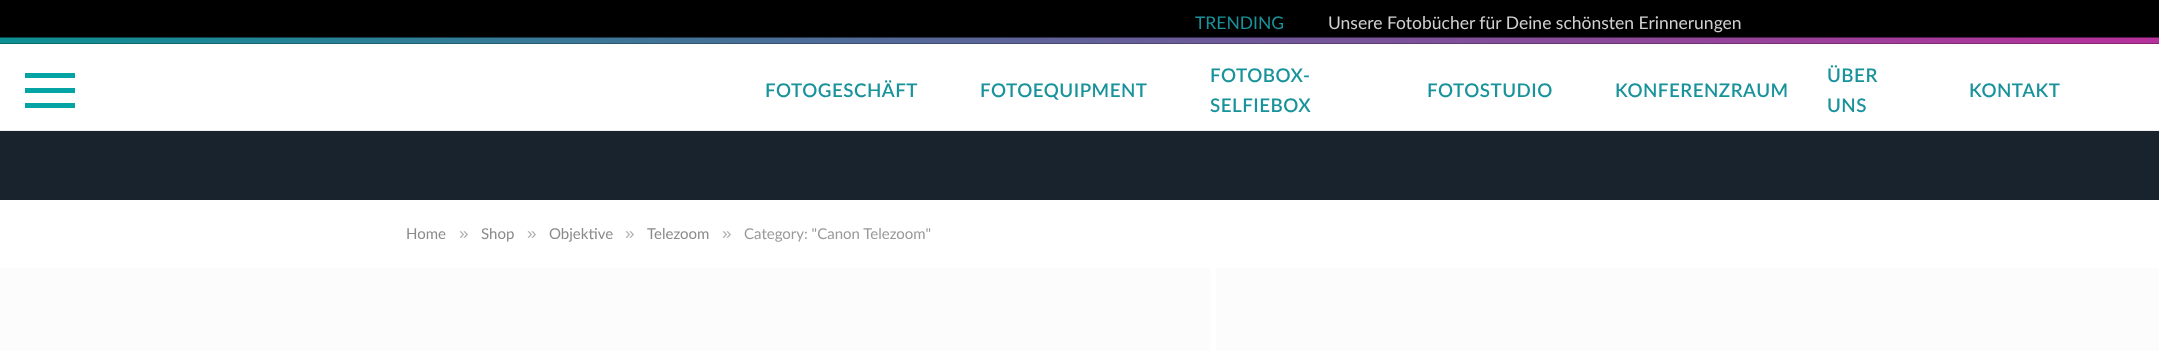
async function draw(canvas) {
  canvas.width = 2159;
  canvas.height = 351;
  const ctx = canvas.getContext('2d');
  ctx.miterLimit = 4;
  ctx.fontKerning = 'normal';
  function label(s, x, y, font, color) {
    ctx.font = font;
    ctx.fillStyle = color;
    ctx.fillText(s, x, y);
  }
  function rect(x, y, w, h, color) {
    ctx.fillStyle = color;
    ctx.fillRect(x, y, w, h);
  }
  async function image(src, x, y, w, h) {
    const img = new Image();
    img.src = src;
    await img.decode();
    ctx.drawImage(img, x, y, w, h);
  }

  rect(0, 0, 2159, 351, '#fff');
  rect(0, 0, 2159, 44, '#000');
  await image('assets/img1.png', 0, 37, 2159, 7);
  label('TRENDING', 1195, 29, '17.5px Lato', '#18929b');
  label('Unsere Fotobücher für Deine schönsten Erinnerungen', 1328, 29, '17.5px Lato', '#d1d1d1');
  rect(0, 130, 2159, 1, '#efefef');
  rect(25, 103, 50, 5, '#04a4a4');
  rect(25, 73, 50, 5, '#04a4a4');
  rect(25, 88, 50, 5, '#04a4a4');
  ctx.letterSpacing = '0.5px';
  label('FOTOGESCHÄFT', 765, 97, '600 18.75px Lato', '#18929b');
  label('FOTOEQUIPMENT', 980, 97, '600 18.75px Lato', '#18929b');
  label('FOTOBOX-', 1210, 82, '600 18.75px Lato', '#18929b');
  label('SELFIEBOX', 1210, 112, '600 18.75px Lato', '#18929b');
  label('FOTOSTUDIO', 1427, 97, '600 18.75px Lato', '#18929b');
  label('KONFERENZRAUM', 1615, 97, '600 18.75px Lato', '#18929b');
  label('ÜBER', 1827, 82, '600 18.75px Lato', '#18929b');
  label('UNS', 1827, 112, '600 18.75px Lato', '#18929b');
  label('KONTAKT', 1969, 97, '600 18.75px Lato', '#18929b');
  rect(0, 131, 2159, 69, '#19232d');
  ctx.letterSpacing = '0px';
  label('Home', 406, 239, '15px Lato', '#8a8a8a');
  label('»', 459, 239, '17px Liberation Sans', '#adadad');
  label('Shop', 481, 239, '15px Lato', '#8a8a8a');
  label('»', 527, 239, '17px Liberation Sans', '#adadad');
  label('Objektive', 549, 239, '15px Lato', '#8a8a8a');
  label('»', 625, 239, '17px Liberation Sans', '#adadad');
  label('Telezoom', 647, 239, '15px Lato', '#8a8a8a');
  label('»', 722, 239, '17px Liberation Sans', '#adadad');
  label('Category: "Canon Telezoom"', 744, 239, '15px Lato', '#999');
  rect(0, 268, 1210, 83, '#fcfcfc');
  rect(1216, 268, 943, 83, '#fcfcfc');
}

draw(document.querySelector('canvas'));
